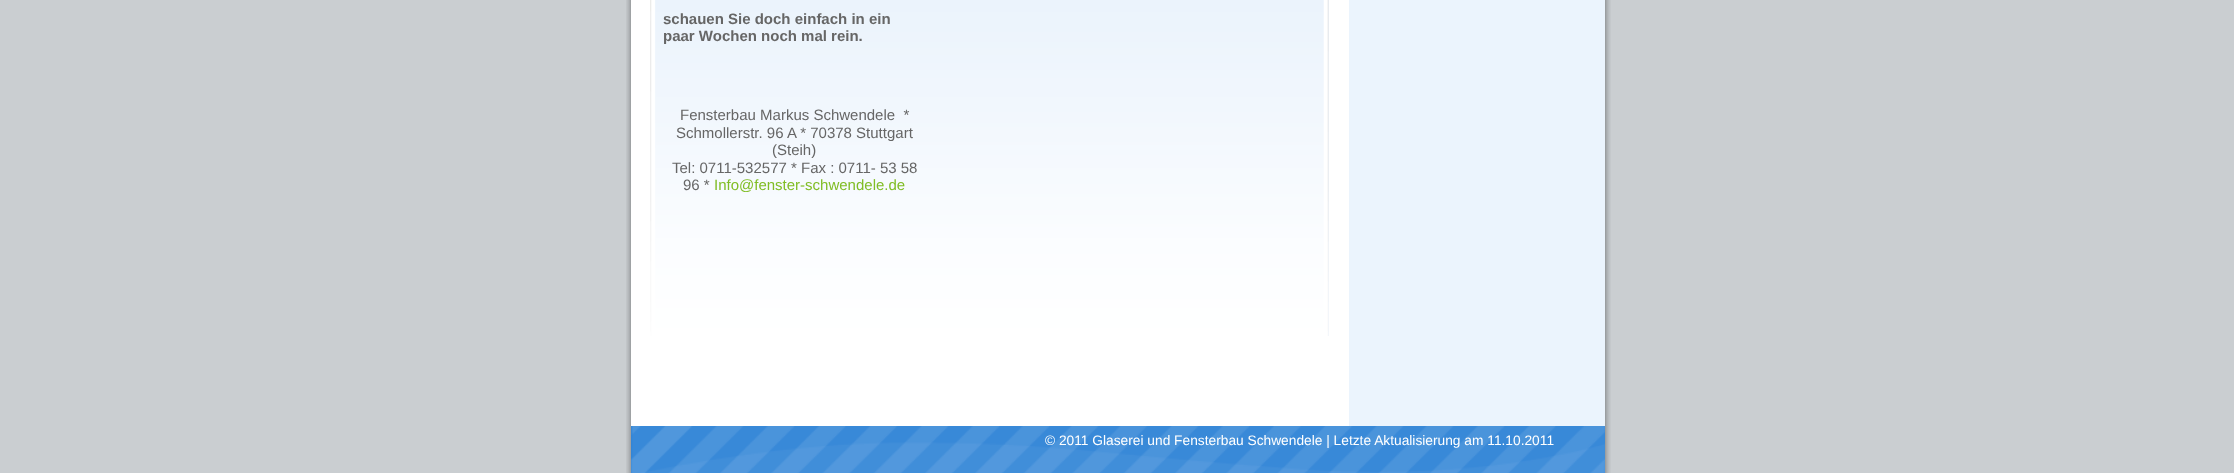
async function draw(canvas) {
  canvas.width = 2234;
  canvas.height = 473;
  const ctx = canvas.getContext('2d');
  ctx.miterLimit = 4;
  ctx.fontKerning = 'normal';
  function label(s, x, y, font, color) {
    ctx.font = font;
    ctx.fillStyle = color;
    ctx.fillText(s, x, y);
  }
  function rect(x, y, w, h, color) {
    ctx.fillStyle = color;
    ctx.fillRect(x, y, w, h);
  }
  async function image(src, x, y, w, h) {
    const img = new Image();
    img.src = src;
    await img.decode();
    ctx.drawImage(img, x, y, w, h);
  }

  rect(0, 0, 2234, 473, '#caced1');
  await image('assets/img1.png', 626, 0, 985, 426);
  rect(631, 0, 718, 426, '#fff');
  rect(654, 0, 675, 336, '#ddebfa');
  await image('assets/img2.png', 650, 0, 679, 336);
  rect(1349, 0, 256, 426, '#ebf4fd');
  label('schauen Sie doch einfach in ein', 663, 24, 'bold 15px Liberation Sans', '#666');
  label('paar Wochen noch mal rein.', 663, 41, 'bold 15px Liberation Sans', '#666');
  label('Fensterbau Markus Schwendele  *', 680, 120, '15px Liberation Sans', '#666');
  label('Schmollerstr. 96 A * 70378 Stuttgart', 676, 138, '15px Liberation Sans', '#666');
  label('(Steih)', 772, 155, '15px Liberation Sans', '#666');
  label('Tel: 0711-532577 * Fax : 0711- 53 58', 672, 173, '15px Liberation Sans', '#666');
  label('96 *', 683, 190, '15px Liberation Sans', '#666');
  label('Info@fenster-schwendele.de', 714, 190, '15px Liberation Sans', '#80bd25');
  await image('assets/img3.png', 626, 426, 985, 47);
  rect(631, 426, 974, 47, '#2e83d6');
  await image('assets/img4.png', 631, 426, 974, 47);
  label('© 2011 Glaserei und Fensterbau Schwendele | Letzte Aktualisierung am 11.10.2011', 1045, 445, '13.75px Liberation Sans', '#fff');
}

draw(document.querySelector('canvas'));
